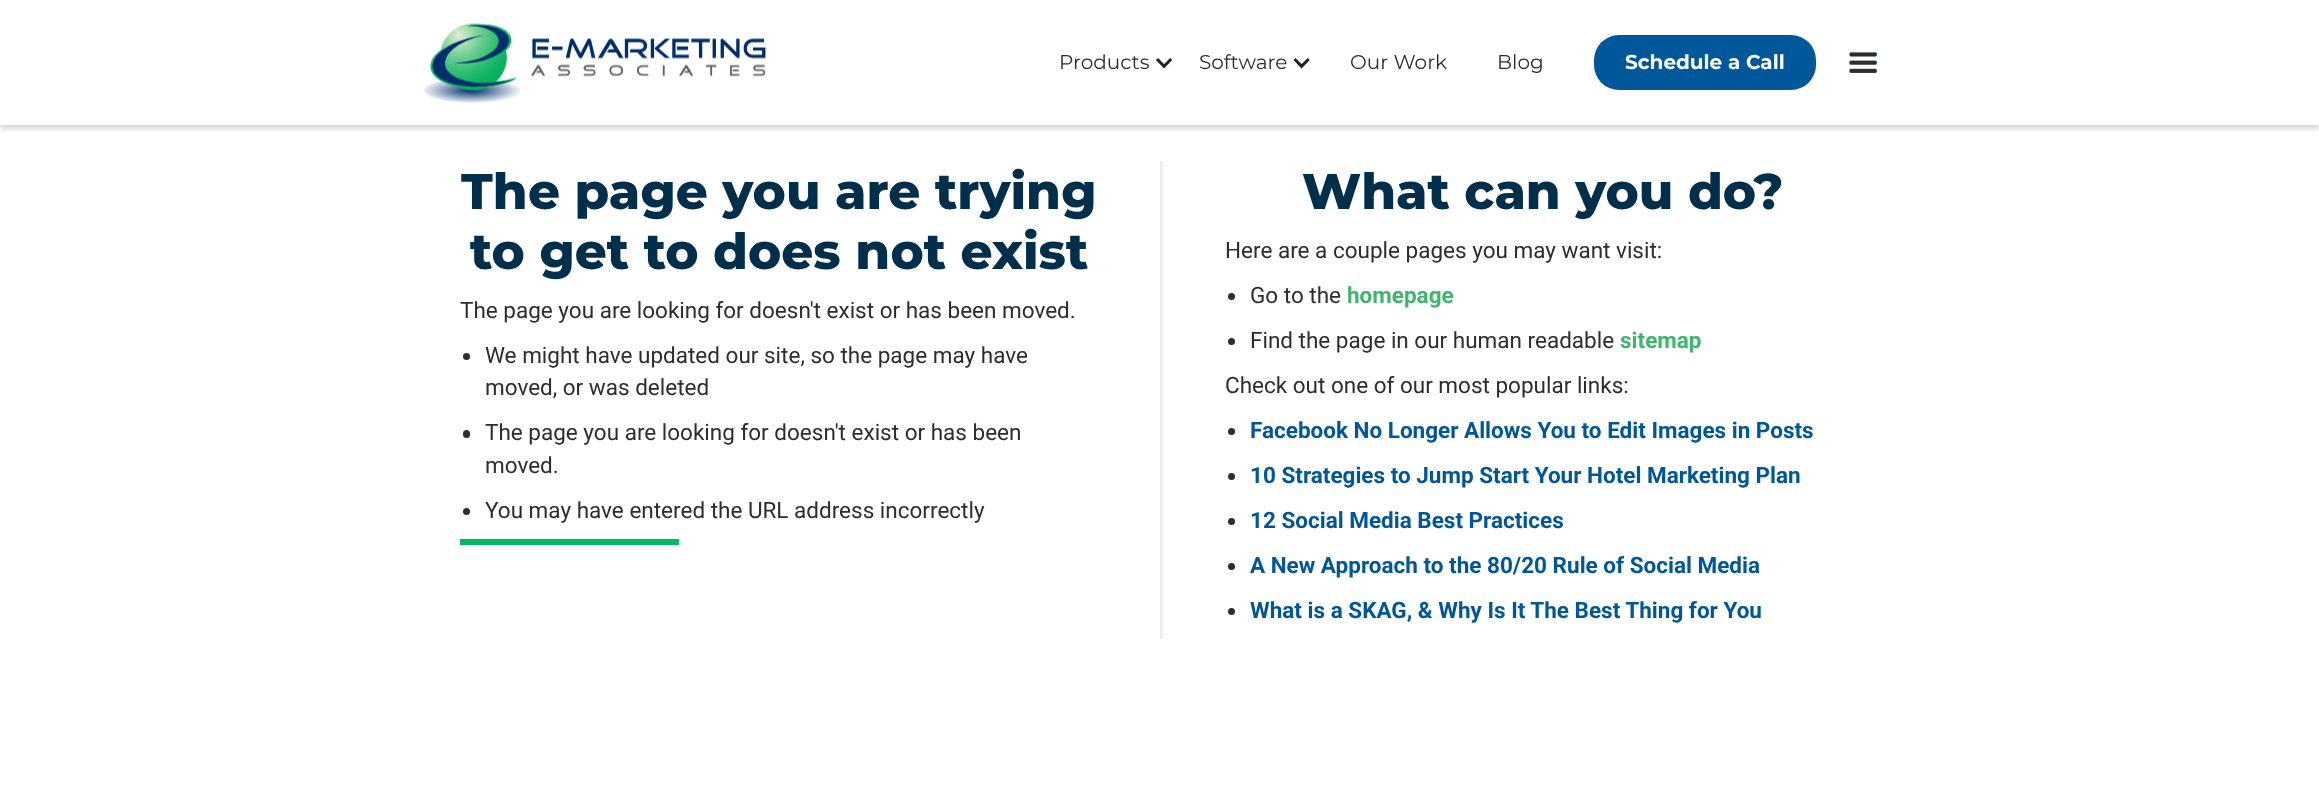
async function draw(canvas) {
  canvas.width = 2319;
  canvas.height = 800;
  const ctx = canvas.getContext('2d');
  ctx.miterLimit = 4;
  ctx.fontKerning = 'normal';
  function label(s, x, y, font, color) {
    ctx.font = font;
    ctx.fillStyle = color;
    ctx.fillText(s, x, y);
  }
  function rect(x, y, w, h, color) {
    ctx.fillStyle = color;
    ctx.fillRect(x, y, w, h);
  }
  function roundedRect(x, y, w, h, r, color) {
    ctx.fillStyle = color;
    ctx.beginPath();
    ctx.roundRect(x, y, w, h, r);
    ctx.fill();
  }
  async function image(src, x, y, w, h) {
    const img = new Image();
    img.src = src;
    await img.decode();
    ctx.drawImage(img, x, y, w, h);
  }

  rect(0, 0, 2319, 800, '#fff');
  ctx.save();
  ctx.beginPath();
  ctx.rect(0, 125, 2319, 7);
  ctx.clip();
  ctx.fillStyle = '#00000033';
  ctx.filter = 'blur(3px)';
  ctx.beginPath();
  ctx.rect(0, 3, 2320, 125);
  ctx.fill();
  ctx.filter = 'none';
  ctx.restore();
  await image('assets/img1.png', 424, 23, 342, 80);
  label('Products', 1059, 69, '20px Montserrat', '#2a2e30');
  await image('assets/img2.png', 1156, 58, 17, 11);
  label('Software', 1199, 69, '20px Montserrat', '#2a2e30');
  await image('assets/img3.png', 1293, 58, 17, 11);
  label('Our Work', 1350, 69, '20px Montserrat', '#2a2e30');
  label('Blog', 1497, 69, '20px Montserrat', '#2a2e30');
  roundedRect(1594, 35, 222, 55, 25, '#00579a');
  label('Schedule a Call', 1625, 69, 'bold 20px Montserrat', '#fff');
  await image('assets/img4.png', 1849, 52, 28, 21);
  label('The page you are trying', 461, 209, '800 50px Montserrat', '#012e4b');
  label('to get to does not exist', 470, 269, '800 50px Montserrat', '#012e4b');
  label('The page you are looking for doesn\'t exist or has been moved.', 460, 318, '22.5px Roboto', '#2a2e30');
  ctx.beginPath();
  ctx.arc(466.5, 356.5, 3.5, 0, 2 * Math.PI);
  ctx.fill();
  label('We might have updated our site, so the page may have', 485, 363, '22.5px Roboto', '#2a2e30');
  label('moved, or was deleted', 485, 395, '22.5px Roboto', '#2a2e30');
  roundedRect(463, 430, 7, 8, 3.5, '#2a2e30');
  label('The page you are looking for doesn\'t exist or has been', 485, 440, '22.5px Roboto', '#2a2e30');
  label('moved.', 485, 473, '22.5px Roboto', '#2a2e30');
  ctx.beginPath();
  ctx.arc(466.5, 511.5, 3.5, 0, 2 * Math.PI);
  ctx.fill();
  label('You may have entered the URL address incorrectly', 485, 518, '22.5px Roboto', '#2a2e30');
  rect(460, 539, 219, 6, '#00b965');
  rect(1160, 161, 3, 478, '#eee');
  label('What can you do?', 1302, 209, '800 50px Montserrat', '#012e4b');
  label('Here are a couple pages you may want visit:', 1225, 258, '22.5px Roboto', '#2a2e30');
  ctx.beginPath();
  ctx.arc(1231.5, 296.5, 3.5, 0, 2 * Math.PI);
  ctx.fill();
  label('Go to the', 1250, 303, '22.5px Roboto', '#2a2e30');
  label('homepage', 1347, 303, 'bold 22.5px Roboto', '#3fb66d');
  ctx.fillStyle = '#2a2e30';
  ctx.beginPath();
  ctx.arc(1231.5, 341.5, 3.5, 0, 2 * Math.PI);
  ctx.fill();
  label('Find the page in our human readable', 1250, 348, '22.5px Roboto', '#2a2e30');
  label('sitemap', 1620, 348, 'bold 22.5px Roboto', '#3fb66d');
  label('Check out one of our most popular links:', 1225, 393, '22.5px Roboto', '#2a2e30');
  ctx.beginPath();
  ctx.arc(1231.5, 431.5, 3.5, 0, 2 * Math.PI);
  ctx.fill();
  label('Facebook No Longer Allows You to Edit Images in Posts', 1250, 438, 'bold 22.5px Roboto', '#015796');
  ctx.fillStyle = '#2a2e30';
  ctx.beginPath();
  ctx.arc(1231.5, 476.5, 3.5, 0, 2 * Math.PI);
  ctx.fill();
  label('10 Strategies to Jump Start Your Hotel Marketing Plan', 1250, 483, 'bold 22.5px Roboto', '#015796');
  ctx.fillStyle = '#2a2e30';
  ctx.beginPath();
  ctx.arc(1231.5, 521.5, 3.5, 0, 2 * Math.PI);
  ctx.fill();
  label('12 Social Media Best Practices', 1250, 528, 'bold 22.5px Roboto', '#015796');
  ctx.fillStyle = '#2a2e30';
  ctx.beginPath();
  ctx.arc(1231.5, 566.5, 3.5, 0, 2 * Math.PI);
  ctx.fill();
  label('A New Approach to the 80/20 Rule of Social Media', 1250, 573, 'bold 22.5px Roboto', '#015796');
  ctx.fillStyle = '#2a2e30';
  ctx.beginPath();
  ctx.arc(1231.5, 611.5, 3.5, 0, 2 * Math.PI);
  ctx.fill();
  label('What is a SKAG, & Why Is It The Best Thing for You', 1250, 618, 'bold 22.5px Roboto', '#015796');
}

draw(document.querySelector('canvas'));
